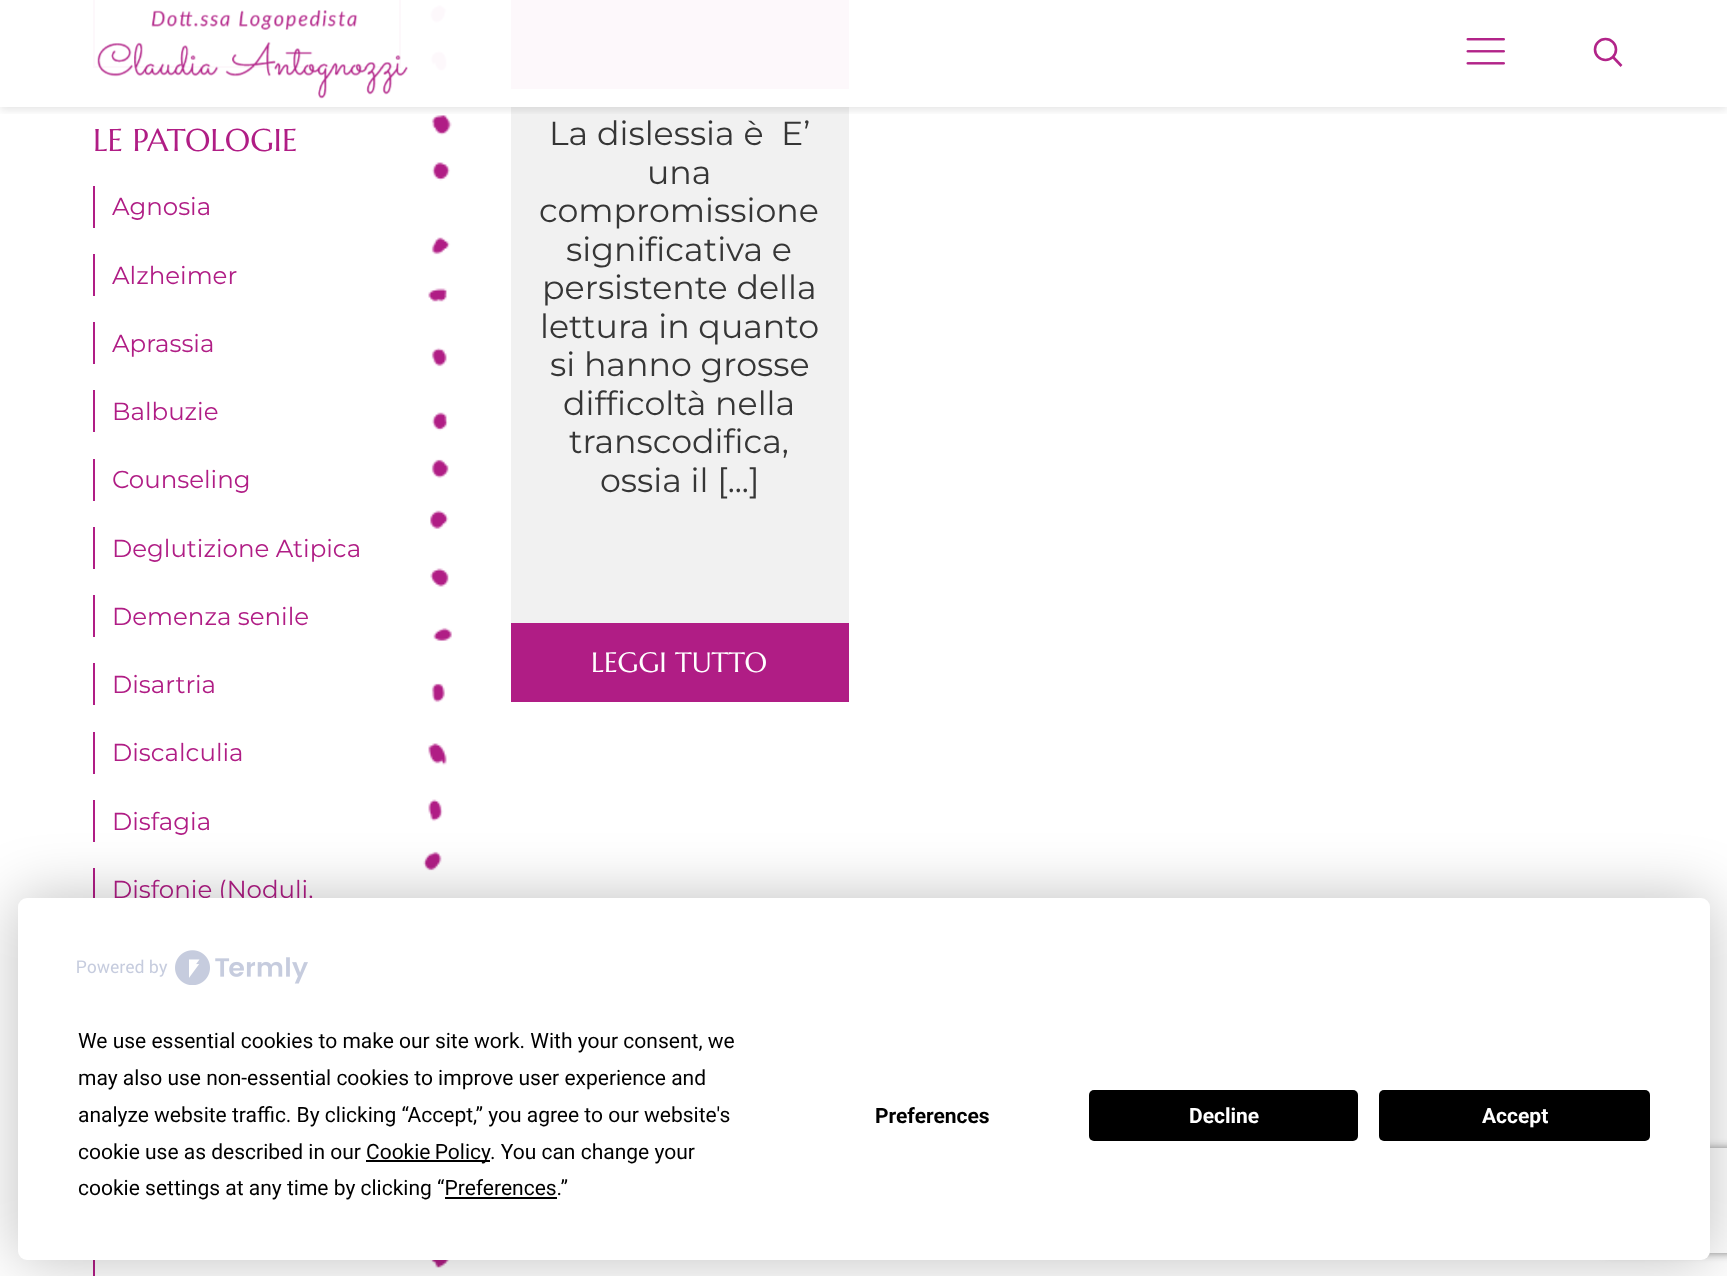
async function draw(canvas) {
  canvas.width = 1727;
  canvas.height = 1276;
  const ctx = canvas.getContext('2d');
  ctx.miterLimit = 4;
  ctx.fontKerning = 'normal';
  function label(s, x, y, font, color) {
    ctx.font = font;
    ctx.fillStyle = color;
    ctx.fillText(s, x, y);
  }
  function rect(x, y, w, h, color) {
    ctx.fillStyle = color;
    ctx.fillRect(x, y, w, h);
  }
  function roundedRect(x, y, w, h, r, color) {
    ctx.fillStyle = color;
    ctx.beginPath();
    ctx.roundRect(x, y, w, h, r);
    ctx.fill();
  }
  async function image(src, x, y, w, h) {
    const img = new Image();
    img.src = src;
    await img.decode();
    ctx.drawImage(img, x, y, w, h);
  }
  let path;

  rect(0, 0, 1727, 1276, '#fff');
  ctx.strokeStyle = '#b01d85';
  ctx.lineWidth = 2;
  ctx.strokeRect(94, -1, 306, 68);
  await image('assets/img3.png', 423, 4, 29, 1264);
  rect(511, 89, 338, 534, '#f1f1f1');
  rect(511, 0, 338, 89, '#b01d85');
  ctx.save();
  ctx.beginPath();
  ctx.rect(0, 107, 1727, 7);
  ctx.clip();
  ctx.fillStyle = '#0000001a';
  ctx.filter = 'blur(4.5px)';
  ctx.beginPath();
  ctx.rect(0, 4, 1727, 106);
  ctx.fill();
  ctx.filter = 'none';
  ctx.restore();
  rect(0, 0, 1727, 107, '#fffffff7');
  await image('assets/img1.png', 97, 10, 311, 89);
  await image('assets/img2.png', 1466, 38, 39, 27);
  ctx.beginPath();
  ctx.arc(1605.5, 49.5, 10.5, 0, 2 * Math.PI);
  ctx.strokeStyle = '#b22489';
  ctx.lineWidth = 2.6;
  ctx.stroke();
  path = new Path2D('M1613 57L1621.5 66');
  ctx.stroke(path);
  label('LE PATOLOGIE', 93, 151, '31.5px Marcellus', '#b01d85');
  rect(93, 186, 2, 42, '#b01d85');
  label('Agnosia', 112, 215, '24.5px Montserrat', '#b01d85');
  rect(93, 254, 2, 42, '#b01d85');
  label('Alzheimer', 112, 284, '24.5px Montserrat', '#b01d85');
  rect(93, 322, 2, 42, '#b01d85');
  label('Aprassia', 112, 352, '24.5px Montserrat', '#b01d85');
  rect(93, 390, 2, 42, '#b01d85');
  label('Balbuzie', 112, 420, '24.5px Montserrat', '#b01d85');
  rect(93, 459, 2, 42, '#b01d85');
  label('Counseling', 112, 488, '24.5px Montserrat', '#b01d85');
  rect(93, 527, 2, 42, '#b01d85');
  label('Deglutizione Atipica', 112, 557, '24.5px Montserrat', '#b01d85');
  rect(93, 595, 2, 42, '#b01d85');
  label('Demenza senile', 112, 625, '24.5px Montserrat', '#b01d85');
  rect(93, 663, 2, 42, '#b01d85');
  label('Disartria', 112, 693, '24.5px Montserrat', '#b01d85');
  rect(93, 732, 2, 42, '#b01d85');
  label('Discalculia', 112, 761, '24.5px Montserrat', '#b01d85');
  rect(93, 800, 2, 42, '#b01d85');
  label('Disfagia', 112, 830, '24.5px Montserrat', '#b01d85');
  rect(93, 868, 2, 30, '#b01d85');
  label('Disfonie (Noduli,', 112, 898, '24.5px Montserrat', '#b01d85');
  rect(93, 1258, 2, 18, '#b01d85');
  label('La dislessia è', 549, 145, '33.25px Montserrat', '#363636');
  label('E’', 781, 145, '33.25px Montserrat', '#363636');
  label('una', 647, 184, '33.25px Montserrat', '#363636');
  label('compromissione', 539, 222, '33.25px Montserrat', '#363636');
  label('significativa e', 566, 261, '33.25px Montserrat', '#363636');
  label('persistente della', 542, 299, '33.25px Montserrat', '#363636');
  label('lettura in quanto', 540, 338, '33.25px Montserrat', '#363636');
  label('si hanno grosse', 550, 376, '33.25px Montserrat', '#363636');
  label('difficoltà nella', 563, 415, '33.25px Montserrat', '#363636');
  label('transcodifica,', 569, 453, '33.25px Montserrat', '#363636');
  label('ossia il [...]', 600, 492, '33.25px Montserrat', '#363636');
  rect(511, 623, 338, 79, '#b01d85');
  label('LEGGI TUTTO', 591, 672, '28px Marcellus', '#fff');
  ctx.fillStyle = '#00000040';
  ctx.filter = 'blur(30.5px)';
  ctx.beginPath();
  ctx.roundRect(18, 898, 1692, 362, 9);
  ctx.fill();
  ctx.filter = 'none';
  ctx.save();
  path = new Path2D('M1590 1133H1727V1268H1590ZM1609 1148H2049C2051 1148 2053 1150 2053 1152V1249C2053 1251 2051 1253 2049 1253H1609C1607 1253 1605 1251 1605 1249V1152C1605 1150 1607 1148 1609 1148Z');
  ctx.clip(path, 'evenodd');
  ctx.fillStyle = '#808080';
  ctx.filter = 'blur(4.5px)';
  ctx.beginPath();
  ctx.roundRect(1605, 1148, 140, 105, 4);
  ctx.fill();
  ctx.filter = 'none';
  ctx.restore();
  roundedRect(18, 898, 1692, 362, 9, '#fff');
  await image('assets/img4.png', 77, 950, 231, 35);
  label('We use essential cookies to make our site work. With your consent, we', 78, 1048, '21px Roboto', '#000');
  label('may also use non-essential cookies to improve user experience and', 78, 1085, '21px Roboto', '#000');
  label('analyze website traffic. By clicking “Accept,” you agree to our website\'s', 78, 1122, '21px Roboto', '#000');
  label('cookie use as described in our', 78, 1159, '21px Roboto', '#000');
  rect(366, 1160, 124, 2, '#000');
  ctx.wordSpacing = '-1px';
  label('Cookie Policy', 366, 1159, '21px Roboto', '#000');
  ctx.wordSpacing = '0px';
  label('. You can change your', 490, 1159, '21px Roboto', '#000');
  label('cookie settings at any time by clicking “Preferences.”', 78, 1195, '21px Roboto', '#000');
  rect(445, 1197, 112, 2, '#000');
  label('Preferences', 875, 1123, 'bold 21px Roboto', '#000');
  roundedRect(1089, 1090, 269, 51, 5, '#000');
  label('Decline', 1189, 1123, 'bold 21px Roboto', '#fff');
  roundedRect(1379, 1090, 271, 51, 5, '#000');
  label('Accept', 1482, 1123, 'bold 21px Roboto', '#fff');
}

draw(document.querySelector('canvas'));
